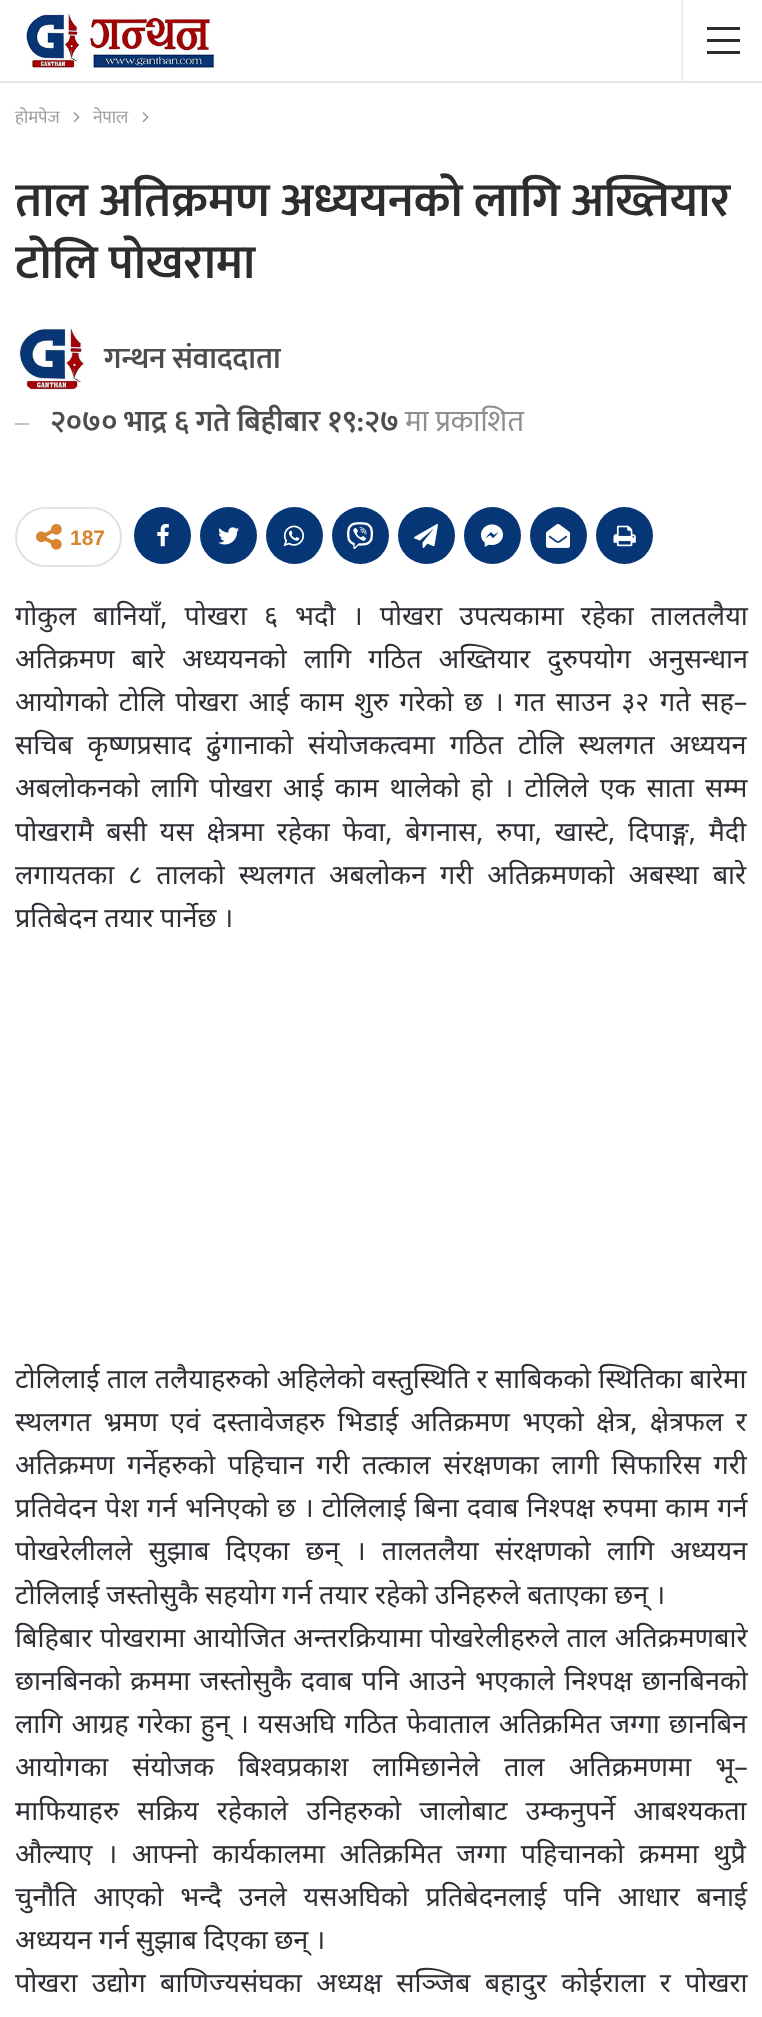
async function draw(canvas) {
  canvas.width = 762;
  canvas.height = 2017;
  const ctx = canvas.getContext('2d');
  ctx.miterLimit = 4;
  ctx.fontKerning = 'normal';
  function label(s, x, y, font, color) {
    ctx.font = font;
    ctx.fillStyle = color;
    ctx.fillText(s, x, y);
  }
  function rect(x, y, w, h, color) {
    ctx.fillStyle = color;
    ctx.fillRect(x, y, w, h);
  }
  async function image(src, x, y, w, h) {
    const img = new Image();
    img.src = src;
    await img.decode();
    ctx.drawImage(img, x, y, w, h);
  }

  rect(0, 0, 762, 2017, '#fff');
  rect(0, 81, 762, 2, '#e5e5e5');
  await image('assets/img1.png', 26, 12, 190, 57);
  rect(681, 0, 2, 81, '#ededed');
  rect(707, 39, 33, 3, '#2c2c2c');
  rect(707, 27, 33, 3, '#2c2c2c');
  rect(707, 51, 33, 3, '#2c2c2c');
  label('होमपेज', 15, 123, '18px Mukta', '#9e9e9e');
  await image('assets/img2.png', 73, 112, 7, 11);
  label('नेपाल', 93, 123, '18px Mukta', '#9e9e9e');
  await image('assets/img2.png', 142, 112, 7, 11);
  ctx.save();
  ctx.beginPath();
  ctx.rect(15, 171, 732, 276);
  ctx.clip();
  label('ताल अतिक्रमण अध्ययनको लागि अख्तियार', 15, 216, '600 48px Mukta', '#2d2d2d');
  label('टोलि पोखरामा', 15, 278, '600 48px Mukta', '#2d2d2d');
  ctx.restore();
  await image('assets/img3.png', 19, 325, 67, 66);
  label('गन्थन संवाददाता', 104, 368, '600 30px Mukta', '#4d4d4d');
  rect(15, 423, 14, 2, '#c4c4c4');
  label('२०७० भाद्र ६ गते बिहीबार १९:२७', 50, 431, '600 30px Mukta', '#4d4d4d');
  label('मा प्रकाशित', 405, 431, '30px Mukta', '#8f8f8f');
  ctx.beginPath();
  ctx.roundRect(16, 508, 105, 58, 29);
  ctx.strokeStyle = '#e2e2e2';
  ctx.lineWidth = 2;
  ctx.stroke();
  await image('assets/img4.png', 36, 523, 26, 27);
  label('187', 70, 545, 'bold 21px Liberation Sans', '#d88531');
  ctx.fillStyle = '#063676';
  ctx.beginPath();
  ctx.arc(162.5, 535.5, 28.5, 0, 2 * Math.PI);
  ctx.fill();
  await image('assets/img5.png', 157, 523, 12, 24);
  ctx.beginPath();
  ctx.arc(228.5, 535.5, 28.5, 0, 2 * Math.PI);
  ctx.fill();
  await image('assets/img6.png', 218, 527, 21, 18);
  ctx.beginPath();
  ctx.arc(294.5, 535.5, 28.5, 0, 2 * Math.PI);
  ctx.fill();
  await image('assets/img7.png', 283, 525, 22, 22);
  ctx.beginPath();
  ctx.arc(360.5, 535.5, 28.5, 0, 2 * Math.PI);
  ctx.fill();
  await image('assets/img8.png', 347, 522, 26, 27);
  ctx.beginPath();
  ctx.arc(426.5, 535.5, 28.5, 0, 2 * Math.PI);
  ctx.fill();
  await image('assets/img9.png', 414, 524, 24, 24);
  ctx.beginPath();
  ctx.arc(492.5, 535.5, 28.5, 0, 2 * Math.PI);
  ctx.fill();
  await image('assets/img10.png', 480, 524, 24, 23);
  ctx.beginPath();
  ctx.arc(558.5, 535.5, 28.5, 0, 2 * Math.PI);
  ctx.fill();
  await image('assets/img11.png', 546, 524, 24, 24);
  ctx.beginPath();
  ctx.arc(624.5, 535.5, 28.5, 0, 2 * Math.PI);
  ctx.fill();
  await image('assets/img12.png', 613, 525, 23, 22);
  ctx.wordSpacing = '10px';
  label('गोकुल बानियाँ, पोखरा ६ भदौ । पोखरा उपत्यकामा रहेका तालतलैया', 15, 625, '27px Noto Sans', '#2c2f34');
  label('अतिक्रमण बारे अध्ययनको लागि गठित अख्तियार दुरुपयोग अनुसन्धान', 15, 668, '27px Noto Sans', '#2c2f34');
  ctx.wordSpacing = '3.6px';
  label('आयोगको टोलि पोखरा आई काम शुरु गरेको छ । गत साउन ३२ गते सह–', 15, 711, '27px Noto Sans', '#2c2f34');
  ctx.wordSpacing = '7.75px';
  label('सचिब कृष्णप्रसाद ढुंगानाको संयोजकत्वमा गठित टोलि स्थलगत अध्ययन', 15, 754, '27px Noto Sans', '#2c2f34');
  ctx.wordSpacing = '4px';
  label('अबलोकनको लागि पोखरा आई काम थालेको हो । टोलिले एक साता सम्म', 15, 797, '27px Noto Sans', '#2c2f34');
  ctx.wordSpacing = '5.75px';
  label('पोखरामै बसी यस क्षेत्रमा रहेका फेवा, बेगनास, रुपा, खास्टे, दिपाङ्ग, मैदी', 15, 841, '27px Noto Sans', '#2c2f34');
  ctx.wordSpacing = '7px';
  label('लगायतका ८ तालको स्थलगत अबलोकन गरी अतिक्रमणको अबस्था बारे', 15, 884, '27px Noto Sans', '#2c2f34');
  ctx.wordSpacing = '-0.25px';
  label('प्रतिबेदन तयार पार्नेछ ।', 15, 927, '27px Noto Sans', '#2c2f34');
  ctx.wordSpacing = '0.25px';
  label('टोलिलाई ताल तलैयाहरुको अहिलेको वस्तुस्थिति र साबिकको स्थितिका बारेमा', 15, 1388, '27px Noto Sans', '#2c2f34');
  ctx.wordSpacing = '5.25px';
  label('स्थलगत भ्रमण एवं दस्तावेजहरु भिडाई अतिक्रमण भएको क्षेत्र, क्षेत्रफल र', 15, 1431, '27px Noto Sans', '#2c2f34');
  ctx.wordSpacing = '5.5px';
  label('अतिक्रमण गर्नेहरुको पहिचान गरी तत्काल संरक्षणका लागी सिफारिस गरी', 15, 1474, '27px Noto Sans', '#2c2f34');
  ctx.wordSpacing = '1px';
  label('प्रतिवेदन पेश गर्न भनिएको छ । टोलिलाई बिना दवाब निश्पक्ष रुपमा काम गर्न', 15, 1517, '27px Noto Sans', '#2c2f34');
  ctx.wordSpacing = '9px';
  label('पोखरेलीलले सुझाब दिएका छन् । तालतलैया संरक्षणको लागि अध्ययन', 15, 1560, '27px Noto Sans', '#2c2f34');
  ctx.wordSpacing = '-0.25px';
  label('टोलिलाई जस्तोसुकै सहयोग गर्न तयार रहेको उनिहरुले बताएका छन् ।', 15, 1604, '27px Noto Sans', '#2c2f34');
  ctx.wordSpacing = '0.5px';
  label('बिहिबार पोखरामा आयोजित अन्तरक्रियामा पोखरेलीहरुले ताल अतिक्रमणबारे', 15, 1647, '27px Noto Sans', '#2c2f34');
  ctx.wordSpacing = '2.25px';
  label('छानबिनको क्रममा जस्तोसुकै दवाब पनि आउने भएकाले निश्पक्ष छानबिनको', 15, 1690, '27px Noto Sans', '#2c2f34');
  ctx.wordSpacing = '1.9px';
  label('लागि आग्रह गरेका हुन् । यसअघि गठित फेवाताल अतिक्रमित जग्गा छानबिन', 15, 1733, '27px Noto Sans', '#2c2f34');
  ctx.wordSpacing = '17px';
  label('आयोगका संयोजक बिश्वप्रकाश लामिछानेले ताल अतिक्रमणमा भू–', 15, 1776, '27px Noto Sans', '#2c2f34');
  ctx.wordSpacing = '11px';
  label('माफियाहरु सक्रिय रहेकाले उनिहरुको जालोबाट उम्कनुपर्ने आबश्यकता', 15, 1820, '27px Noto Sans', '#2c2f34');
  ctx.wordSpacing = '7.5px';
  label('औल्याए । आफ्नो कार्यकालमा अतिक्रमित जग्गा पहिचानको क्रममा थुप्रै', 15, 1863, '27px Noto Sans', '#2c2f34');
  ctx.wordSpacing = '9.75px';
  label('चुनौति आएको भन्दै उनले यसअघिको प्रतिबेदनलाई पनि आधार बनाई', 15, 1906, '27px Noto Sans', '#2c2f34');
  ctx.wordSpacing = '-0.25px';
  label('अध्ययन गर्न सुझाब दिएका छन् ।', 15, 1949, '27px Noto Sans', '#2c2f34');
  ctx.wordSpacing = '7.25px';
  label('पोखरा उद्योग बाणिज्यसंघका अध्यक्ष सञ्जिब बहादुर कोईराला र पोखरा', 15, 1992, '27px Noto Sans', '#2c2f34');
}

draw(document.querySelector('canvas'));
